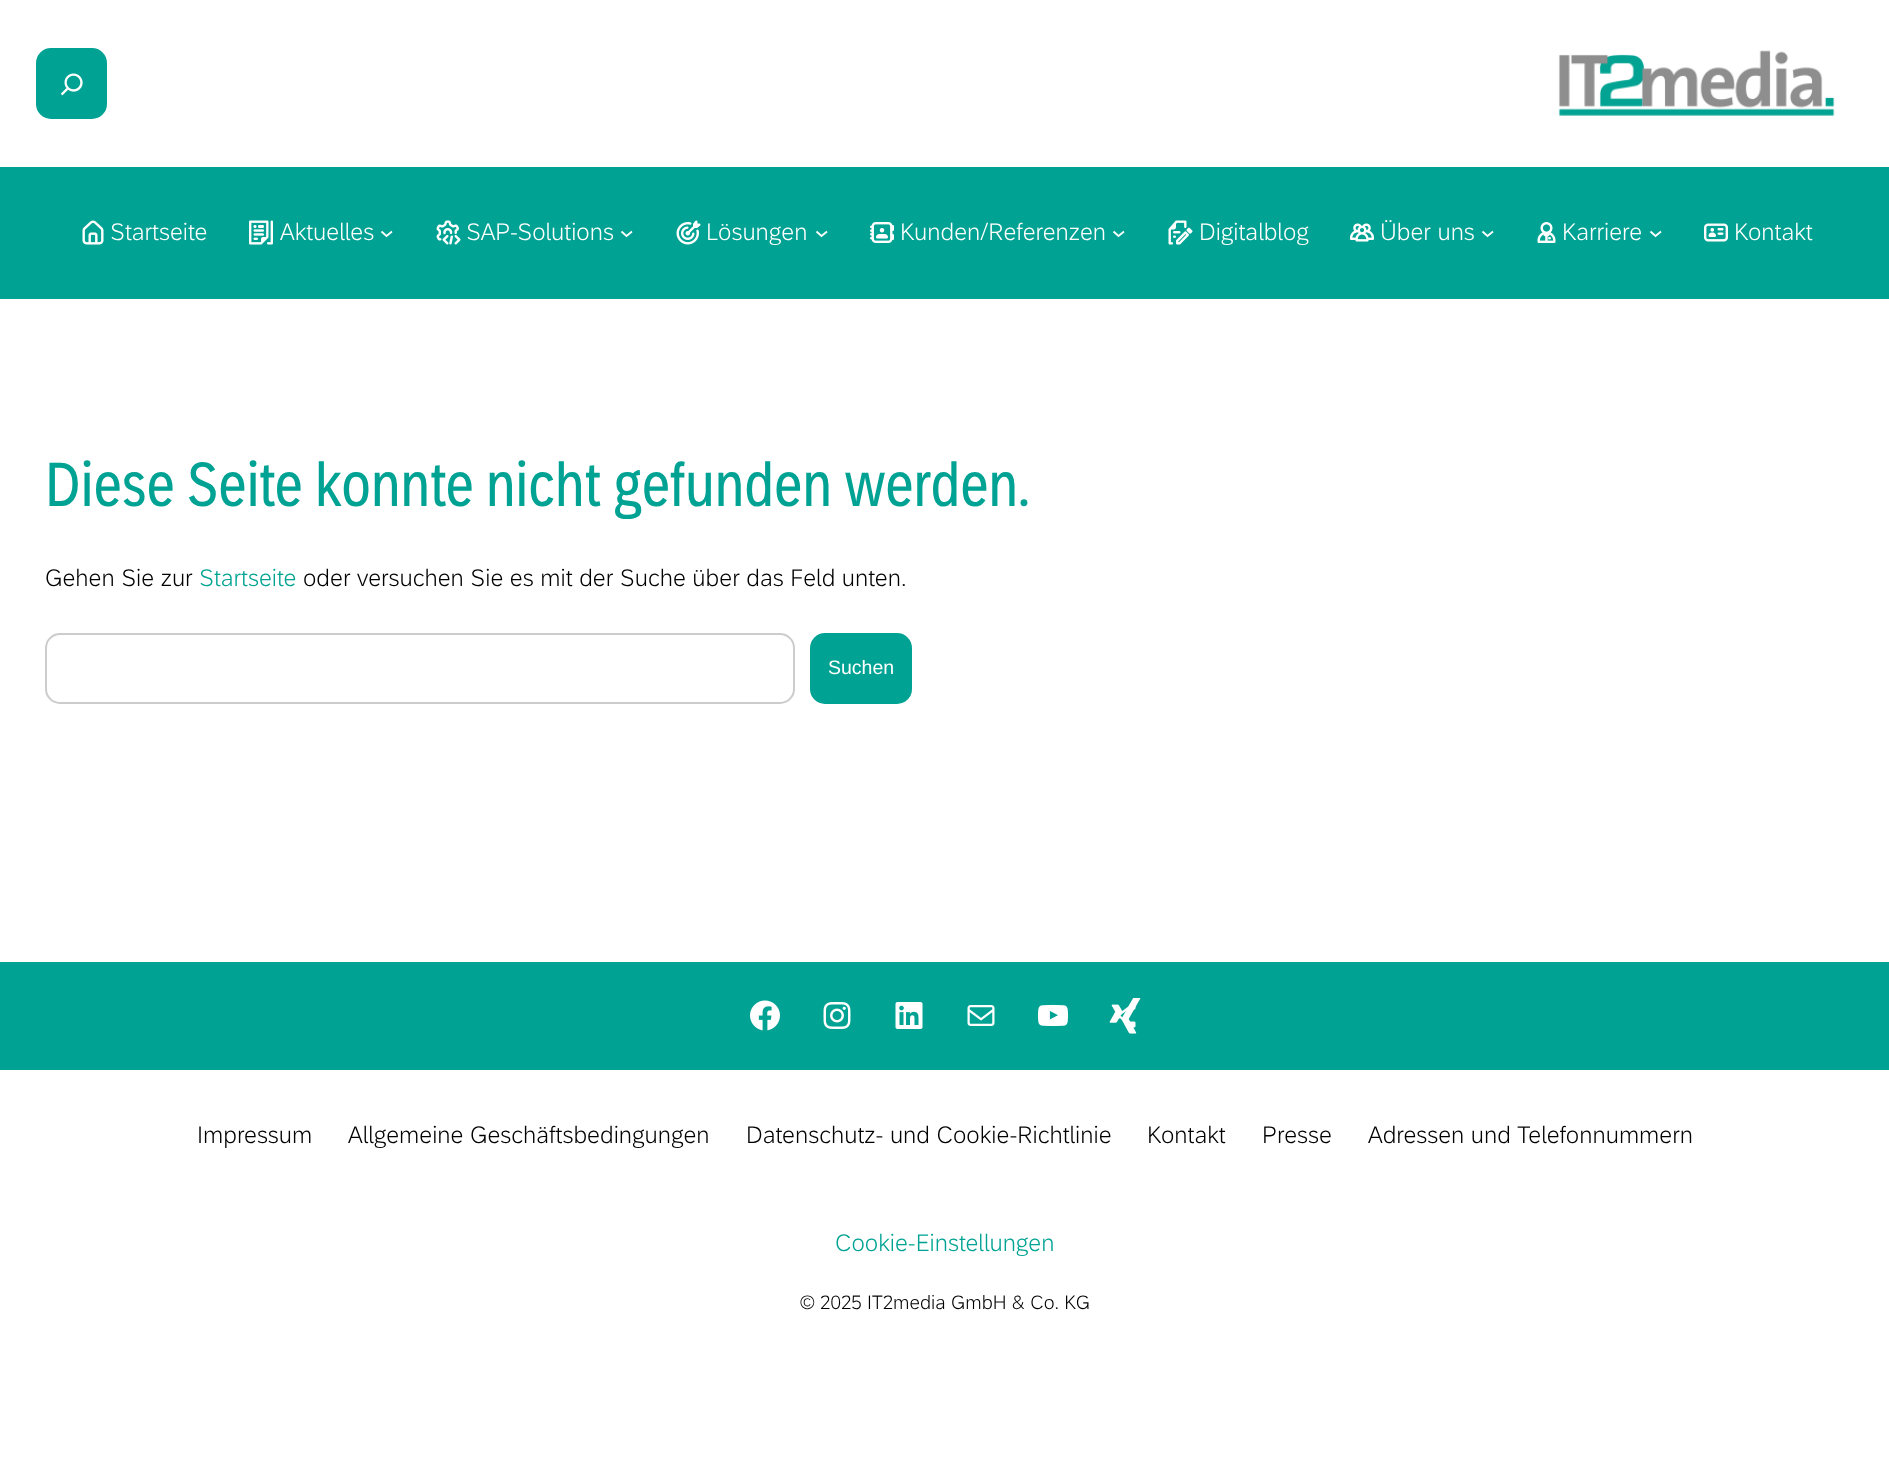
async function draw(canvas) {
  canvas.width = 1889;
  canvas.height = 1462;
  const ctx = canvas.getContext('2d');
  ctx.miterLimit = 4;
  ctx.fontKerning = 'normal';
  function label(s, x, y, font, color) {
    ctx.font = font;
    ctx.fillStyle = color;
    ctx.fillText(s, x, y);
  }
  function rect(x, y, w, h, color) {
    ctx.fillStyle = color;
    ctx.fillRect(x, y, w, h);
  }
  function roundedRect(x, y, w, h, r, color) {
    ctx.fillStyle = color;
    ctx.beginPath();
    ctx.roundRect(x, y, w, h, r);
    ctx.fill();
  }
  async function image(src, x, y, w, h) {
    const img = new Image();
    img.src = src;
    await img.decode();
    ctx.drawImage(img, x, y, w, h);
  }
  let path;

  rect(0, 0, 1889, 1462, '#fff');
  roundedRect(36, 48, 71, 71, 15, '#00a393');
  await image('assets/img1.png', 60, 73, 23, 23);
  await image('assets/img2.png', 1558, 50, 277, 66);
  rect(0, 167, 1889, 132, '#00a393');
  await image('assets/img3.png', 82, 220, 22, 25);
  label('Startseite', 110, 240, '300 24px "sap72"', '#fff');
  await image('assets/img4.png', 249, 220, 24, 25);
  label('Aktuelles', 280, 240, '300 24px "sap72"', '#fff');
  path = new Path2D('M381.5 231.5L386.5 236L392 231.5');
  ctx.strokeStyle = '#fff';
  ctx.lineWidth = 1.8;
  ctx.stroke(path);
  await image('assets/img5.png', 436, 220, 25, 25);
  label('SAP-Solutions', 466, 240, '300 24px "sap72"', '#fff');
  path = new Path2D('M621.5 231.5L626.5 236L632 231.5');
  ctx.stroke(path);
  await image('assets/img6.png', 676, 220, 25, 25);
  label('Lösungen', 706, 240, '300 24px "sap72"', '#fff');
  path = new Path2D('M816.5 231.5L821.5 236L827 231.5');
  ctx.stroke(path);
  await image('assets/img7.png', 870, 222, 24, 21);
  label('Kunden/Referenzen', 900, 240, '300 24px "sap72"', '#fff');
  path = new Path2D('M1113.5 231.5L1118.5 236L1124 231.5');
  ctx.stroke(path);
  await image('assets/img8.png', 1168, 220, 25, 25);
  label('Digitalblog', 1199, 240, '300 24px "sap72"', '#fff');
  await image('assets/img9.png', 1350, 223, 24, 19);
  label('Über uns', 1380, 240, '300 24px "sap72"', '#fff');
  path = new Path2D('M1482.5 231.5L1487.5 236L1493 231.5');
  ctx.stroke(path);
  await image('assets/img10.png', 1537, 222, 19, 21);
  label('Karriere', 1562, 240, '300 24px "sap72"', '#fff');
  path = new Path2D('M1650.5 231.5L1655.5 236L1661 231.5');
  ctx.stroke(path);
  await image('assets/img11.png', 1704, 223, 24, 19);
  label('Kontakt', 1734, 240, '300 24px "sap72"', '#fff');
  label('Diese Seite konnte nicht gefunden werden.', 45, 506, '63px "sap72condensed"', '#00a393');
  label('Gehen Sie zur', 45, 586, '300 24px "sap72"', '#000');
  label('Startseite', 199, 586, '300 24px "sap72"', '#00a393');
  label('oder versuchen Sie es mit der Suche über das Feld unten.', 303, 586, '300 24px "sap72"', '#000');
  ctx.beginPath();
  ctx.roundRect(46, 634, 748, 69, 14);
  ctx.strokeStyle = '#ccc';
  ctx.lineWidth = 2;
  ctx.stroke();
  roundedRect(810, 633, 102, 71, 15, '#00a393');
  label('Suchen', 828, 674, '19.5px Liberation Sans', '#fff');
  rect(0, 962, 1889, 108, '#00a393');
  await image('assets/img12.png', 750, 1000, 30, 31);
  await image('assets/img13.png', 823, 1002, 28, 27);
  await image('assets/img14.png', 895, 1002, 28, 27);
  await image('assets/img15.png', 967, 1005, 28, 21);
  await image('assets/img16.png', 1038, 1004, 30, 23);
  await image('assets/img17.png', 1109, 998, 32, 36);
  await image('assets/img18.png', 1114, 1003, 22, 25);
  label('Impressum', 197, 1143, '300 24px "sap72"', '#000');
  label('Allgemeine Geschäftsbedingungen', 348, 1143, '300 24px "sap72"', '#000');
  label('Datenschutz- und Cookie-Richtlinie', 746, 1143, '300 24px "sap72"', '#000');
  label('Kontakt', 1147, 1143, '300 24px "sap72"', '#000');
  label('Presse', 1262, 1143, '300 24px "sap72"', '#000');
  label('Adressen und Telefonnummern', 1368, 1143, '300 24px "sap72"', '#000');
  label('Cookie-Einstellungen', 835, 1251, '300 24px "sap72"', '#00a393');
  label('© 2025 IT2media GmbH & Co. KG', 800, 1309, '300 19.5px "sap72"', '#000');
}

draw(document.querySelector('canvas'));
